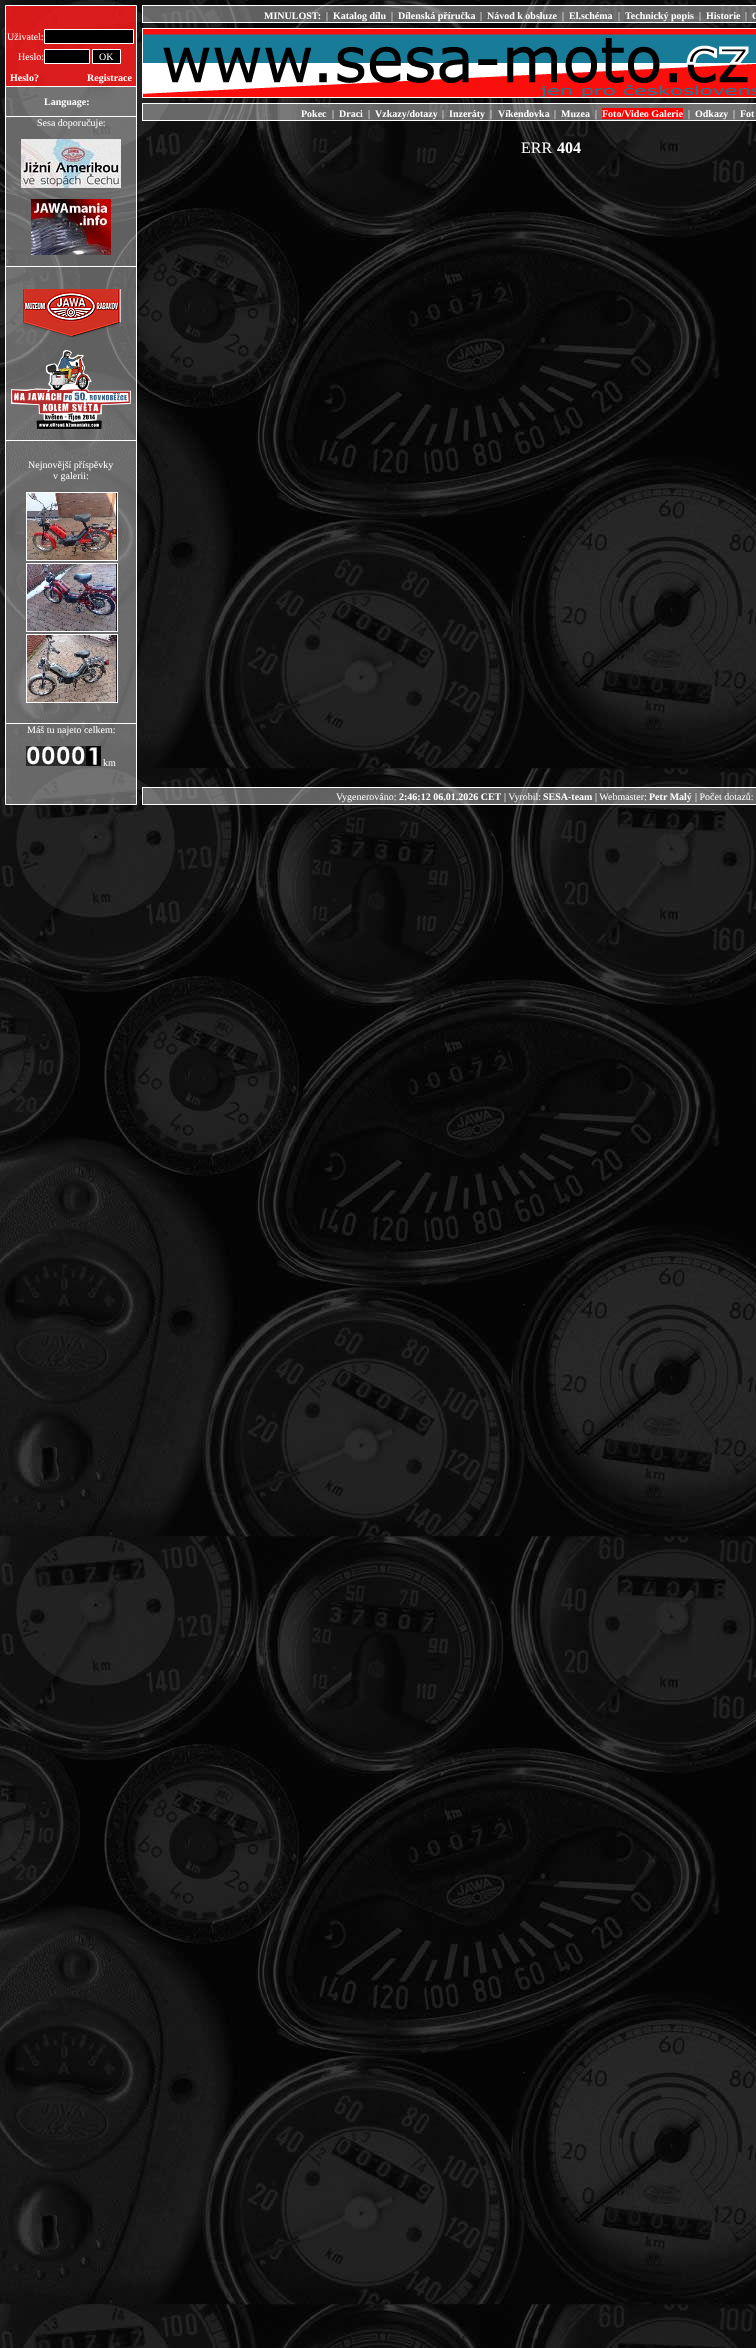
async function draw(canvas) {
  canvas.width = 756;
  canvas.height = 2348;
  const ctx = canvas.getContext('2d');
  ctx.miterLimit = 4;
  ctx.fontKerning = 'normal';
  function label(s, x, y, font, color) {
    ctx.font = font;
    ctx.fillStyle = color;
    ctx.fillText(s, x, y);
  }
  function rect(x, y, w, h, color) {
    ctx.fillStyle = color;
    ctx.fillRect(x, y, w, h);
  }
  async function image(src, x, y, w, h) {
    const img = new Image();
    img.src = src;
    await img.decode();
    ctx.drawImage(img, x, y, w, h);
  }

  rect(0, 0, 756, 2348, '#fff');
  await image('assets/img1.png', 0, 0, 756, 2348);
  ctx.strokeStyle = '#fff';
  ctx.strokeRect(142.5, 5.5, 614, 17);
  rect(143, 6, 613, 16, '#ffffff5e');
  label('MINULOST:', 264, 19, 'bold 10px Liberation Serif', '#fff');
  label('|', 326, 19, '10px Liberation Serif', '#fff');
  label('Katalog dílu', 333, 19, 'bold 10px Liberation Serif', '#fff');
  label('|', 391, 19, '10px Liberation Serif', '#fff');
  label('Dílenská příručka', 398, 19, 'bold 10px Liberation Serif', '#fff');
  label('|', 480, 19, '10px Liberation Serif', '#fff');
  label('Návod k obsluze', 487, 19, 'bold 10px Liberation Serif', '#fff');
  label('|', 562, 19, '10px Liberation Serif', '#fff');
  label('El.schéma', 569, 19, 'bold 10px Liberation Serif', '#fff');
  label('|', 618, 19, '10px Liberation Serif', '#fff');
  label('Technický popis', 625, 19, 'bold 10px Liberation Serif', '#fff');
  label('|', 699, 19, '10px Liberation Serif', '#fff');
  label('Historie', 706, 19, 'bold 10px Liberation Serif', '#fff');
  label('|', 745, 19, '10px Liberation Serif', '#fff');
  label('C', 752, 19, 'bold 10px Liberation Serif', '#fff');
  ctx.fillStyle = '#ffffff5e';
  ctx.beginPath();
  ctx.rect(5.5, 5.5, 131, 799);
  ctx.fill();
  ctx.stroke();
  rect(6, 86, 130, 1, '#fff');
  rect(6, 6, 130, 80, '#ff0000bf');
  label('Uživatel:', 7, 40, '10px Liberation Serif', '#fff');
  ctx.fillStyle = '#000';
  ctx.beginPath();
  ctx.rect(44.5, 29.5, 89, 14);
  ctx.fill();
  ctx.stroke();
  label('Heslo:', 18, 60, '10px Liberation Serif', '#fff');
  ctx.fillStyle = '#000';
  ctx.beginPath();
  ctx.rect(44.5, 49.5, 45, 14);
  ctx.fill();
  ctx.stroke();
  ctx.beginPath();
  ctx.rect(92.5, 49.5, 28, 14);
  ctx.fill();
  ctx.stroke();
  label('OK', 99, 60, '10px Liberation Serif', '#fff');
  label('Heslo?', 10, 81, 'bold 10px Liberation Serif', '#fff');
  label('Registrace', 87, 81, 'bold 10px Liberation Serif', '#fff');
  rect(6, 116, 130, 1, '#fff');
  label('Language:', 44, 105, 'bold 10px Liberation Serif', '#fff');
  rect(6, 266, 130, 1, '#fff');
  label('Sesa doporučuje:', 37, 126, '10px Liberation Serif', '#fff');
  await image('assets/img2.png', 21, 139, 100, 49);
  await image('assets/img3.png', 31, 199, 80, 56);
  rect(6, 440, 130, 1, '#fff');
  await image('assets/img4.png', 23, 289, 98, 49);
  await image('assets/img5.png', 11, 350, 120, 79);
  rect(6, 723, 130, 1, '#fff');
  label('Nejnovější příspěvky', 28, 468, '10px Liberation Serif', '#fff');
  label('v galerii:', 53, 479, '10px Liberation Serif', '#fff');
  ctx.strokeRect(26.5, 492.5, 91, 68);
  await image('assets/img6.png', 27, 493, 90, 67);
  ctx.strokeRect(26.5, 563.5, 91, 68);
  await image('assets/img7.png', 27, 564, 90, 67);
  ctx.strokeRect(26.5, 634.5, 91, 68);
  await image('assets/img8.png', 27, 635, 90, 67);
  label('Máš tu najeto celkem:', 27, 733, '10px Liberation Serif', '#fff');
  await image('assets/img9.png', 26, 746, 15, 20);
  await image('assets/img9.png', 41, 746, 15, 20);
  await image('assets/img9.png', 56, 746, 15, 20);
  await image('assets/img9.png', 71, 746, 15, 20);
  await image('assets/img10.png', 86, 746, 15, 20);
  label('km', 103, 766, '10px Liberation Serif', '#fff');
  await image('assets/img11.png', 143, 29, 613, 5);
  ctx.strokeRect(142.5, 28.5, 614, 69);
  await image('assets/img12.png', 143, 34, 613, 63);
  ctx.strokeRect(142.5, 103.5, 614, 17);
  rect(143, 104, 613, 16, '#ffffff5e');
  label('Pokec', 301, 117, 'bold 10px Liberation Serif', '#fff');
  label('|', 332, 117, '10px Liberation Serif', '#fff');
  label('Draci', 339, 117, 'bold 10px Liberation Serif', '#fff');
  label('|', 368, 117, '10px Liberation Serif', '#fff');
  label('Vzkazy/dotazy', 375, 117, 'bold 10px Liberation Serif', '#fff');
  label('|', 442, 117, '10px Liberation Serif', '#fff');
  label('Inzeráty', 449, 117, 'bold 10px Liberation Serif', '#fff');
  label('|', 490, 117, '10px Liberation Serif', '#fff');
  label('Víkendovka', 498, 117, 'bold 10px Liberation Serif', '#fff');
  label('|', 554, 117, '10px Liberation Serif', '#fff');
  label('Muzea', 561, 117, 'bold 10px Liberation Serif', '#fff');
  label('|', 595, 117, '10px Liberation Serif', '#fff');
  rect(602, 108, 81, 11, '#f00');
  label('Foto/Video Galerie', 602, 117, 'bold 10px Liberation Serif', '#fff');
  label('|', 688, 117, '10px Liberation Serif', '#fff');
  label('Odkazy', 695, 117, 'bold 10px Liberation Serif', '#fff');
  label('|', 733, 117, '10px Liberation Serif', '#fff');
  label('Fot', 740, 117, 'bold 10px Liberation Serif', '#fff');
  label('ERR', 521, 153, '16px Liberation Serif', '#fff');
  label('404', 557, 153, 'bold 16px Liberation Serif', '#fff');
  ctx.strokeRect(142.5, 787.5, 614, 17);
  rect(143, 788, 613, 16, '#ffffff5e');
  label('Vygenerováno:', 336, 800, '10px Liberation Serif', '#fff');
  label('2:46:12 06.01.2026 CET', 399, 800, 'bold 10px Liberation Serif', '#fff');
  label('| Vyrobil:', 504, 800, '10px Liberation Serif', '#fff');
  label('SESA-team', 543, 800, 'bold 10px Liberation Serif', '#fff');
  label('| Webmaster:', 595, 800, '10px Liberation Serif', '#fff');
  label('Petr Malý', 649, 800, 'bold 10px Liberation Serif', '#fff');
  label('| Počet dotazů:', 695, 800, '10px Liberation Serif', '#fff');
}

draw(document.querySelector('canvas'));
